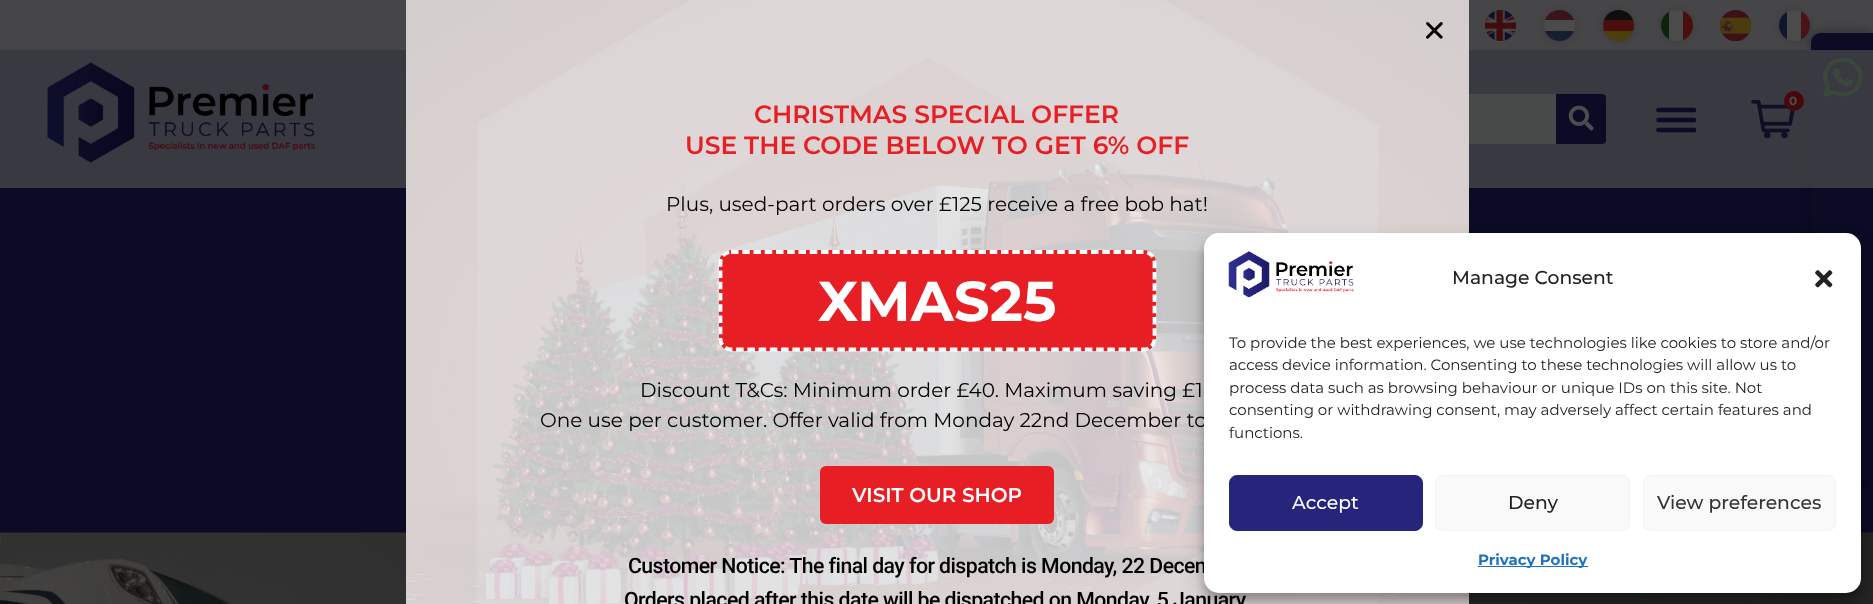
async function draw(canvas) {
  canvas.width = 1873;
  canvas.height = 604;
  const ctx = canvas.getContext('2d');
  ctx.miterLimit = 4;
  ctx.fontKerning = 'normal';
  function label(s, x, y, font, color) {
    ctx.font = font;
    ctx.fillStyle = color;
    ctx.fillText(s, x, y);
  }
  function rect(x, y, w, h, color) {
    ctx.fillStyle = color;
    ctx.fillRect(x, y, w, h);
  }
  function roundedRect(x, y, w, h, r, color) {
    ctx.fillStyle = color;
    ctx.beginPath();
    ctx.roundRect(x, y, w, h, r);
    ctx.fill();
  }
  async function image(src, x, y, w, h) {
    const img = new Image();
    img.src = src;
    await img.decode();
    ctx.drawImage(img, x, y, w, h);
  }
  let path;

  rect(0, 0, 1873, 604, '#fff');
  rect(0, 50, 1873, 483, '#0b0b25');
  rect(0, 0, 1873, 50, '#464649');
  await image('assets/img1.png', 1485, 10, 31, 31);
  ctx.fillStyle = '#3e3e3f';
  ctx.filter = 'blur(3px)';
  ctx.beginPath();
  ctx.roundRect(1543, 9, 33, 34, 16.5);
  ctx.fill();
  ctx.filter = 'none';
  ctx.filter = 'blur(3px)';
  ctx.beginPath();
  ctx.roundRect(1601, 9, 34, 34, 17);
  ctx.fill();
  ctx.filter = 'none';
  ctx.filter = 'blur(3px)';
  ctx.beginPath();
  ctx.roundRect(1660, 9, 34, 34, 17);
  ctx.fill();
  ctx.filter = 'none';
  ctx.filter = 'blur(3px)';
  ctx.beginPath();
  ctx.roundRect(1778, 9, 33, 34, 16.5);
  ctx.fill();
  ctx.filter = 'none';
  ctx.fillStyle = '#4b4b4c';
  ctx.beginPath();
  ctx.arc(1559.5, 25.5, 15.5, 0, 2 * Math.PI);
  ctx.fill();
  ctx.save();
  ctx.beginPath();
  ctx.roundRect(1544, 10, 31, 31, 15.5);
  ctx.clip();
  rect(1545, 10, 29, 10, '#381518');
  ctx.restore();
  ctx.save();
  ctx.beginPath();
  ctx.roundRect(1603, 10, 31, 31, 15.5);
  ctx.clip();
  rect(1604, 10, 29, 10, '#0e0e0e');
  ctx.restore();
  roundedRect(1661, 10, 32, 31, 15.5, '#4b4b4c');
  ctx.save();
  ctx.beginPath();
  ctx.roundRect(1661, 10, 32, 31, 15.5);
  ctx.clip();
  rect(1661, 10, 8, 31, '#0e230e');
  ctx.restore();
  await image('assets/img2.png', 1720, 10, 31, 31);
  ctx.beginPath();
  ctx.arc(1794.5, 25.5, 15.5, 0, 2 * Math.PI);
  ctx.fill();
  ctx.save();
  ctx.beginPath();
  ctx.roundRect(1603, 10, 31, 31, 15.5);
  ctx.clip();
  rect(1603, 20, 31, 11, '#4b0e0e');
  ctx.restore();
  ctx.save();
  ctx.beginPath();
  ctx.roundRect(1661, 10, 32, 31, 15.5);
  ctx.clip();
  rect(1683, 11, 10, 29, '#4a0e0e');
  ctx.restore();
  ctx.save();
  ctx.beginPath();
  ctx.roundRect(1779, 10, 31, 31, 15.5);
  ctx.clip();
  rect(1779, 10, 8, 31, '#0e172d');
  rect(1801, 11, 9, 29, '#48141a');
  ctx.restore();
  ctx.save();
  ctx.beginPath();
  ctx.roundRect(1544, 10, 31, 31, 15.5);
  ctx.clip();
  rect(1545, 31, 29, 10, '#161f30');
  ctx.restore();
  ctx.save();
  ctx.beginPath();
  ctx.roundRect(1603, 10, 31, 31, 15.5);
  ctx.clip();
  rect(1604, 31, 29, 10, '#4b3f0e');
  ctx.restore();
  ctx.fillStyle = '#00000040';
  ctx.filter = 'blur(4px)';
  ctx.beginPath();
  ctx.roundRect(1809, 30, 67, 453, 13);
  ctx.fill();
  ctx.filter = 'none';
  ctx.fillStyle = '#0b0b25';
  path = new Path2D('M1821 33H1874V480H1821C1815.5 480 1811 475.5 1811 470V43C1811 37.5 1815.5 33 1821 33Z');
  ctx.fill(path);
  await image('assets/img6.png', 1823, 58, 40, 40);
  rect(0, 50, 1873, 138, '#4d4d4db3');
  await image('assets/img3.png', 47, 62, 268, 101);
  roundedRect(1331, 94, 275, 50, 4, '#484949');
  ctx.fillStyle = '#0b0b25';
  ctx.beginPath();
  ctx.roundRect(1556, 94, 50, 50, [0, 4, 4, 0]);
  ctx.fill();
  await image('assets/img4.png', 1568, 105, 26, 26);
  await image('assets/img5.png', 1751, 100, 44, 38);
  ctx.fillStyle = '#46090b';
  ctx.beginPath();
  ctx.arc(1794, 101, 10, 0, 2 * Math.PI);
  ctx.fill();
  label('0', 1789, 105, 'bold 12px Montserrat', '#4d4d4d');
  ctx.save();
  ctx.beginPath();
  ctx.rect(1656, 100, 40, 40);
  ctx.clip();
  path = new Path2D('M1658.5 110H1694M1658.5 120H1694M1658.5 130H1694');
  ctx.strokeStyle = '#0b0b25';
  ctx.lineWidth = 4.7;
  ctx.lineCap = 'round';
  ctx.stroke(path);
  ctx.restore();
  await image('assets/img11.png', 0, 532, 1873, 72);
  await image('assets/img8.png', 406, 0, 1063, 604);
  rect(406, 0, 1063, 604, '#e6e7e8db');
  await image('assets/img7.png', 1426, 22, 17, 17);
  label('CHRISTMAS SPECIAL OFFER', 754, 123, '600 25px Montserrat', '#e81e25');
  label('USE THE CODE BELOW TO GET 6% OFF', 685, 154, '600 25px Montserrat', '#e81e25');
  label('Plus, used-part orders over £125 receive a free bob hat!', 666, 211, '20px Montserrat', '#000');
  roundedRect(719, 250, 437, 101, 13, '#e81e25');
  path = new Path2D('M731 252H1144C1149.5 252 1154.5 256.5 1154.5 262.5V339C1154.5 344.5 1149.5 349.5 1144 349.5H731C725.5 349.5 720.5 344.5 720.5 339V262.5C720.5 256.5 725.5 252 731 252Z');
  ctx.strokeStyle = '#fff';
  ctx.lineWidth = 3.8;
  ctx.setLineDash([7.5, 3.75]);
  ctx.stroke(path);
  label('XMAS25', 818, 321, 'bold 56.25px Montserrat', '#fff');
  label('Discount T&Cs: Minimum order £40. Maximum saving £1', 640, 397, '20px Montserrat', '#000');
  label('One use per customer. Offer valid from Monday 22nd December to', 540, 427, '20px Montserrat', '#000');
  roundedRect(820, 466, 234, 58, 6, '#e81e25');
  label('VISIT OUR SHOP', 852, 502, '600 20px Montserrat', '#fff');
  ctx.letterSpacing = '-0.55px';
  label('Customer Notice: The final day for dispatch is Monday, 22 Decem', 628, 573, '500 21.25px Roboto', '#000');
  label('Orders placed after this date will be dispatched on Monday, 5 January.', 624, 607, '500 21.25px Roboto', '#000');
  ctx.fillStyle = '#0000003b';
  ctx.filter = 'blur(4px)';
  ctx.beginPath();
  ctx.roundRect(1204, 240, 657, 360, 15);
  ctx.fill();
  ctx.filter = 'none';
  ctx.fillStyle = '#00000030';
  ctx.filter = 'blur(12.5px)';
  ctx.beginPath();
  ctx.roundRect(1204, 245, 657, 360, 15);
  ctx.fill();
  ctx.filter = 'none';
  roundedRect(1204, 233, 657, 360, 15, '#fff');
  await image('assets/img9.png', 1228, 251, 126, 47);
  ctx.letterSpacing = '0px';
  label('Manage Consent', 1452, 284, '500 18.75px Montserrat', '#222');
  await image('assets/img10.png', 1815, 270, 18, 18);
  label('To provide the best experiences, we use technologies like cookies to store and/or', 1229, 348, '15px Montserrat', '#222');
  label('access device information. Consenting to these technologies will allow us to', 1229, 370, '15px Montserrat', '#222');
  label('process data such as browsing behaviour or unique IDs on this site. Not', 1229, 393, '15px Montserrat', '#222');
  label('consenting or withdrawing consent, may adversely affect certain features and', 1229, 415, '15px Montserrat', '#222');
  label('functions.', 1229, 438, '15px Montserrat', '#222');
  ctx.fillStyle = '#26247b';
  ctx.beginPath();
  ctx.roundRect(1229.5, 475.5, 193, 55, 7.5);
  ctx.fill();
  ctx.strokeStyle = '#26247b';
  ctx.lineWidth = 1;
  ctx.setLineDash([]);
  ctx.stroke();
  label('Accept', 1292, 509, '500 18.75px Montserrat', '#fff');
  ctx.fillStyle = '#f9f9f9';
  ctx.beginPath();
  ctx.roundRect(1435.5, 475.5, 194, 55, 7.5);
  ctx.fill();
  ctx.strokeStyle = '#f2f2f2';
  ctx.stroke();
  label('Deny', 1508, 509, '500 18.75px Montserrat', '#222');
  ctx.fillStyle = '#f9f9f9';
  ctx.beginPath();
  ctx.roundRect(1643.5, 475.5, 192, 55, 7.5);
  ctx.fill();
  ctx.stroke();
  label('View preferences', 1657, 509, '500 18.75px Montserrat', '#333');
  rect(1478, 566, 110, 1, '#1e73be');
  label('Privacy Policy', 1478, 565, 'bold 15px Montserrat', '#1e73be');
}

draw(document.querySelector('canvas'));
